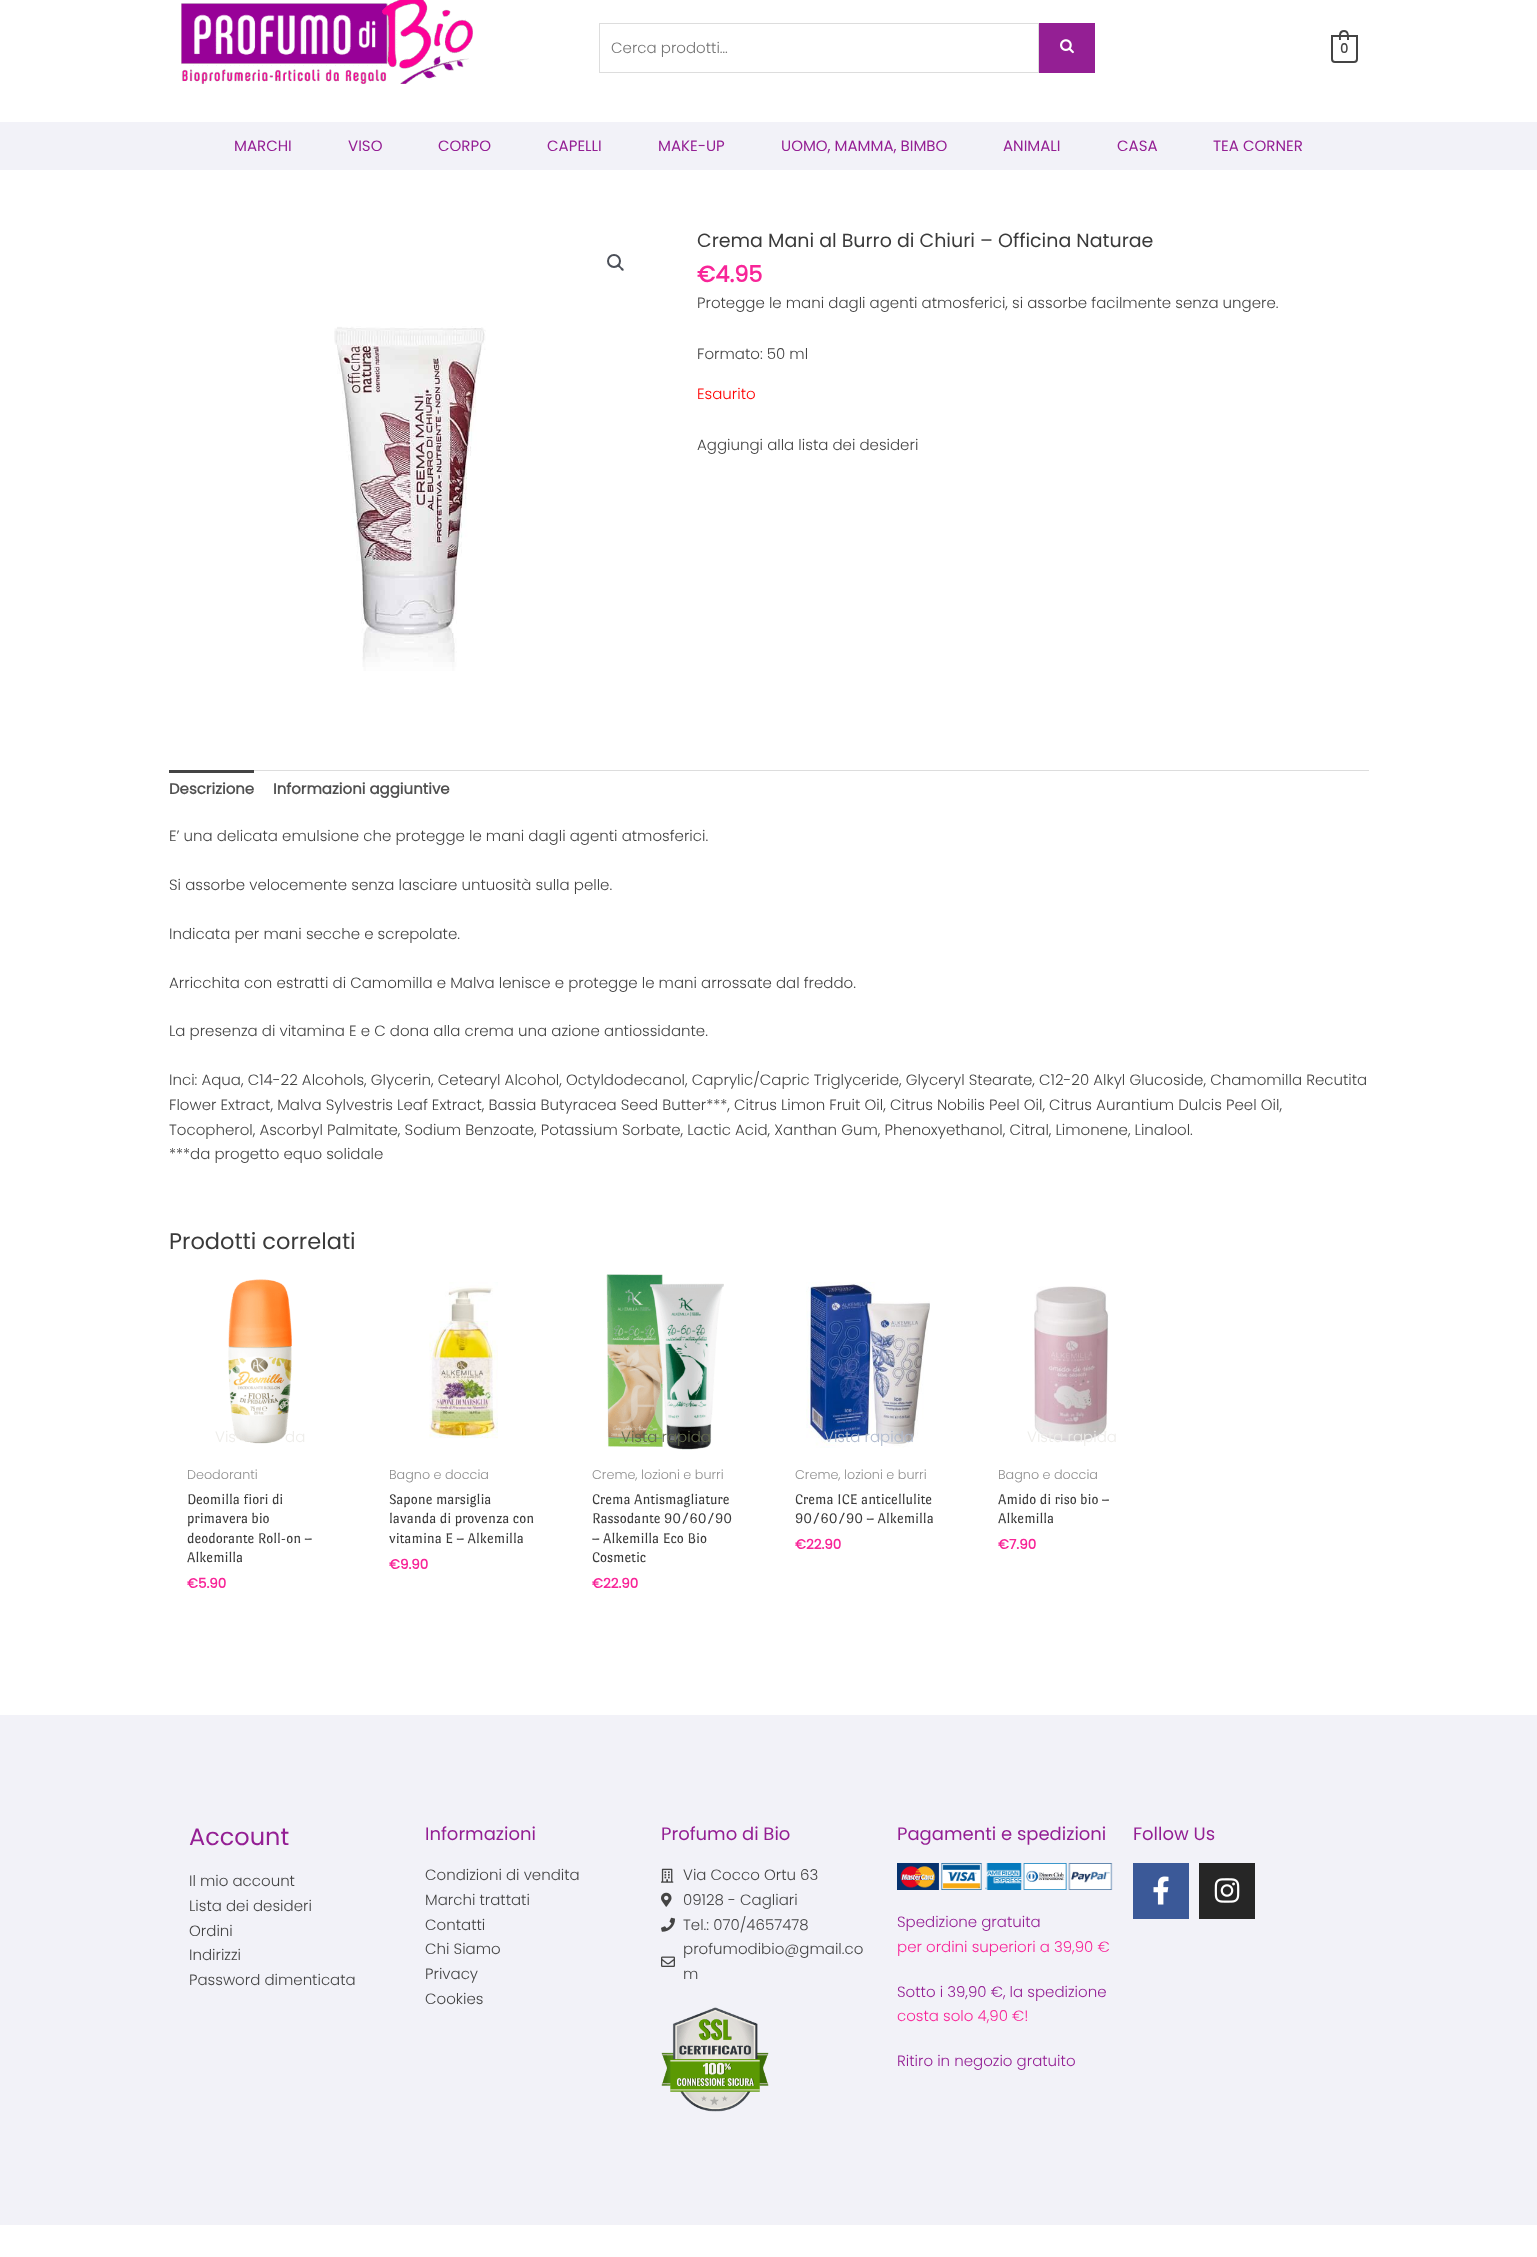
async function draw(canvas) {
  canvas.width = 1537;
  canvas.height = 2257;
  const ctx = canvas.getContext('2d');
  ctx.miterLimit = 4;
  ctx.fontKerning = 'normal';
  function label(s, x, y, font, color) {
    ctx.font = font;
    ctx.fillStyle = color;
    ctx.fillText(s, x, y);
  }
  function rect(x, y, w, h, color) {
    ctx.fillStyle = color;
    ctx.fillRect(x, y, w, h);
  }
  async function image(src, x, y, w, h) {
    const img = new Image();
    img.src = src;
    await img.decode();
    ctx.drawImage(img, x, y, w, h);
  }
  let path;

  rect(0, 0, 1537, 2257, '#fff');
  await image('assets/img1.png', 181, 0, 292, 84);
  ctx.strokeStyle = '#ddd';
  ctx.strokeRect(599.5, 23.5, 439, 49);
  label('Cerca prodotti…', 611, 53, '300 15px Poppins', '#757575');
  rect(1039, 23, 56, 50, '#941f94');
  await image('assets/img2.png', 1060, 39, 14, 15);
  ctx.beginPath();
  ctx.roundRect(1332, 36, 25, 26, [0, 0, 3, 3]);
  ctx.strokeStyle = '#444';
  ctx.lineWidth = 2;
  ctx.stroke();
  ctx.fillStyle = '#444';
  path = new Path2D('M1344 30C1349.5 30 1349 36 1349 40H1339C1339 36 1338 30 1344 30ZM1344 32C1348 32 1347 37.5 1347 40H1341C1341 37.5 1340 32 1344 32Z');
  ctx.fill(path, 'evenodd');
  label('0', 1340, 53, 'bold 13px Poppins', '#444');
  rect(0, 122, 1537, 48, '#f2f2f8');
  label('MARCHI', 234, 151, '15px Poppins', '#941f94');
  label('VISO', 348, 151, '15px Poppins', '#941f94');
  label('CORPO', 438, 151, '15px Poppins', '#941f94');
  label('CAPELLI', 547, 151, '15px Poppins', '#941f94');
  label('MAKE-UP', 658, 151, '15px Poppins', '#941f94');
  label('UOMO, MAMMA, BIMBO', 781, 151, '15px Poppins', '#941f94');
  label('ANIMALI', 1003, 151, '15px Poppins', '#941f94');
  label('CASA', 1117, 151, '15px Poppins', '#941f94');
  label('TEA CORNER', 1213, 151, '15px Poppins', '#941f94');
  ctx.beginPath();
  ctx.arc(614, 261, 6, 0, 2 * Math.PI);
  ctx.strokeStyle = '#4b4f58';
  ctx.stroke();
  ctx.fillStyle = '#4b4f58';
  path = new Path2D('M617.5 264.5C619 263.5 620.5 266 621 267C622 267.5 624.5 269 623.5 270.5C622 271.5 620.5 269 620 268C619 267.5 616.5 266 617.5 264.5Z');
  ctx.fill(path);
  await image('assets/img3.png', 334, 326, 152, 345);
  label('Crema Mani al Burro di Chiuri – Officina Naturae', 697, 247, '19px Poppins', '#3a3a3a');
  label('€4.95', 697, 282, 'bold 22.5px Poppins', '#f82598');
  label('Protegge le mani dagli agenti atmosferici, si assorbe facilmente senza ungere.', 697, 308, '300 15px Poppins', '#444');
  label('Formato: 50 ml', 697, 359, '300 15px Poppins', '#444');
  label('Esaurito', 697, 399, '300 15px Poppins', '#f00');
  label('Aggiungi alla lista dei desideri', 697, 450, '300 15px Poppins', '#444');
  rect(254, 770, 1115, 1, '#ddd');
  rect(169, 770, 85, 3, '#444');
  label('Descrizione', 169, 794, 'bold 15px Poppins', '#515151');
  label('Informazioni aggiuntive', 273, 794, 'bold 15px Poppins', '#515151');
  label('E’ una delicata emulsione che protegge le mani dagli agenti atmosferici.', 169, 841, '300 15px Poppins', '#444');
  label('Si assorbe velocemente senza lasciare untuosità sulla pelle.', 169, 890, '300 15px Poppins', '#444');
  label('Indicata per mani secche e screpolate.', 169, 939, '300 15px Poppins', '#444');
  label('Arricchita con estratti di Camomilla e Malva lenisce e protegge le mani arrossate dal freddo.', 169, 988, '300 15px Poppins', '#444');
  label('La presenza di vitamina E e C dona alla crema una azione antiossidante.', 169, 1036, '300 15px Poppins', '#444');
  label('Inci: Aqua, C14-22 Alcohols, Glycerin, Cetearyl Alcohol, Octyldodecanol, Caprylic/Capric Triglyceride, Glyceryl Stearate, C12-20 Alkyl Glucoside, Chamomilla Recutita', 169, 1085, '300 15px Poppins', '#444');
  label('Flower Extract, Malva Sylvestris Leaf Extract, Bassia Butyracea Seed Butter***, Citrus Limon Fruit Oil, Citrus Nobilis Peel Oil, Citrus Aurantium Dulcis Peel Oil,', 169, 1110, '300 15px Poppins', '#444');
  label('Tocopherol, Ascorbyl Palmitate, Sodium Benzoate, Potassium Sorbate, Lactic Acid, Xanthan Gum, Phenoxyethanol, Citral, Limonene, Linalool.', 169, 1135, '300 15px Poppins', '#444');
  label('***da progetto equo solidale', 169, 1159, '300 15px Poppins', '#444');
  label('Prodotti correlati', 169, 1249, '22.5px Poppins', '#3a3a3a');
  await image('assets/img4.png', 228, 1279, 64, 165);
  label('Vis', 215, 1442, '300 15px Poppins', '#eeedea');
  label('da', 285, 1442, '300 15px Poppins', '#eeedea');
  label('Deodoranti', 187, 1479, '300 12.75px Poppins', '#8f8f8f');
  label('Deomilla fiori di', 187, 1504, '15px Port Lligat Sans', '#3a3a3a');
  label('primavera bio', 187, 1523, '15px Port Lligat Sans', '#3a3a3a');
  label('deodorante Roll-on –', 187, 1543, '15px Port Lligat Sans', '#3a3a3a');
  label('Alkemilla', 187, 1562, '15px Port Lligat Sans', '#3a3a3a');
  label('€5.90', 187, 1588, 'bold 13.5px Poppins', '#f82598');
  await image('assets/img5.png', 429, 1282, 69, 157);
  label('Bagno e doccia', 389, 1479, '300 12.75px Poppins', '#8f8f8f');
  label('Sapone marsiglia', 389, 1504, '15px Port Lligat Sans', '#3a3a3a');
  label('lavanda di provenza con', 389, 1523, '15px Port Lligat Sans', '#3a3a3a');
  label('vitamina E – Alkemilla', 389, 1543, '15px Port Lligat Sans', '#3a3a3a');
  label('€9.90', 389, 1569, 'bold 13.5px Poppins', '#f82598');
  await image('assets/img6.png', 606, 1274, 118, 176);
  label('Vista rapida', 621, 1442, '300 15px Poppins', '#646c4e');
  label('Creme, lozioni e burri', 592, 1479, '300 12.75px Poppins', '#8f8f8f');
  label('Crema Antismagliature', 592, 1504, '15px Port Lligat Sans', '#3a3a3a');
  label('Rassodante 90/60/90', 592, 1523, '15px Port Lligat Sans', '#3a3a3a');
  label('– Alkemilla Eco Bio', 592, 1543, '15px Port Lligat Sans', '#3a3a3a');
  label('Cosmetic', 592, 1562, '15px Port Lligat Sans', '#3a3a3a');
  label('€22.90', 592, 1588, 'bold 13.5px Poppins', '#f82598');
  await image('assets/img7.png', 806, 1282, 124, 166);
  label('Vista rapida', 824, 1442, '300 15px Poppins', '#afbace');
  label('Creme, lozioni e burri', 795, 1479, '300 12.75px Poppins', '#8f8f8f');
  label('Crema ICE anticellulite', 795, 1504, '15px Port Lligat Sans', '#3a3a3a');
  label('90/60/90 – Alkemilla', 795, 1523, '15px Port Lligat Sans', '#3a3a3a');
  label('€22.90', 795, 1549, 'bold 13.5px Poppins', '#f82598');
  await image('assets/img8.png', 1034, 1286, 75, 156);
  label('Vista rapida', 1027, 1442, '300 15px Poppins', '#eeedea');
  label('Bagno e doccia', 998, 1479, '300 12.75px Poppins', '#8f8f8f');
  label('Amido di riso bio –', 998, 1504, '15px Port Lligat Sans', '#3a3a3a');
  label('Alkemilla', 998, 1523, '15px Port Lligat Sans', '#3a3a3a');
  label('€7.90', 998, 1549, 'bold 13.5px Poppins', '#f82598');
  rect(0, 1715, 1537, 510, '#f2f2f8');
  label('Account', 189, 1845, '24px Poppins', '#941f94');
  label('Il mio account', 189, 1886, '300 15px Poppins', '#444');
  label('Lista dei desideri', 189, 1911, '300 15px Poppins', '#444');
  label('Ordini', 189, 1936, '300 15px Poppins', '#444');
  label('Indirizzi', 189, 1960, '300 15px Poppins', '#444');
  label('Password dimenticata', 189, 1985, '300 15px Poppins', '#444');
  label('Informazioni', 425, 1840, '18px Poppins', '#941f94');
  label('Condizioni di vendita', 425, 1880, '300 15px Poppins', '#444');
  label('Marchi trattati', 425, 1905, '300 15px Poppins', '#444');
  label('Contatti', 425, 1930, '300 15px Poppins', '#444');
  label('Chi Siamo', 425, 1954, '300 15px Poppins', '#444');
  label('Privacy', 425, 1979, '300 15px Poppins', '#444');
  label('Cookies', 425, 2004, '300 15px Poppins', '#444');
  label('Profumo di Bio', 661, 1840, '18px Poppins', '#941f94');
  await image('assets/img9.png', 661, 1868, 13, 15);
  label('Via Cocco Ortu 63', 683, 1880, '300 15px Poppins', '#444');
  await image('assets/img10.png', 661, 1892, 11, 15);
  label('09128 - Cagliari', 683, 1905, '300 15px Poppins', '#444');
  await image('assets/img11.png', 661, 1917, 14, 15);
  label('Tel.: 070/4657478', 683, 1930, '300 15px Poppins', '#444');
  await image('assets/img12.png', 661, 1956, 14, 11);
  label('profumodibio@gmail.co', 683, 1954, '300 15px Poppins', '#444');
  label('m', 683, 1979, '300 15px Poppins', '#444');
  await image('assets/img13.png', 661, 2007, 108, 105);
  label('Pagamenti e spedizioni', 897, 1840, '18px Poppins', '#941f94');
  await image('assets/img14.png', 897, 1863, 216, 27);
  label('Spedizione gratuita', 897, 1927, '300 15px Poppins', '#941f94');
  label('per ordini superiori a 39,90 €', 897, 1952, '300 15px Poppins', '#f82598');
  label('Sotto i 39,90 €, la spedizione', 897, 1997, '300 15px Poppins', '#941f94');
  label('costa solo 4,90 €!', 897, 2021, '300 15px Poppins', '#f82598');
  label('Ritiro in negozio gratuito', 897, 2066, '300 15px Poppins', '#941f94');
  label('Follow Us', 1133, 1840, '18px Poppins', '#941f94');
  rect(1133, 1863, 56, 56, '#3b5998');
  await image('assets/img15.png', 1153, 1876, 16, 29);
  rect(1199, 1863, 56, 56, '#262626');
  await image('assets/img16.png', 1214, 1878, 26, 25);
}

draw(document.querySelector('canvas'));
